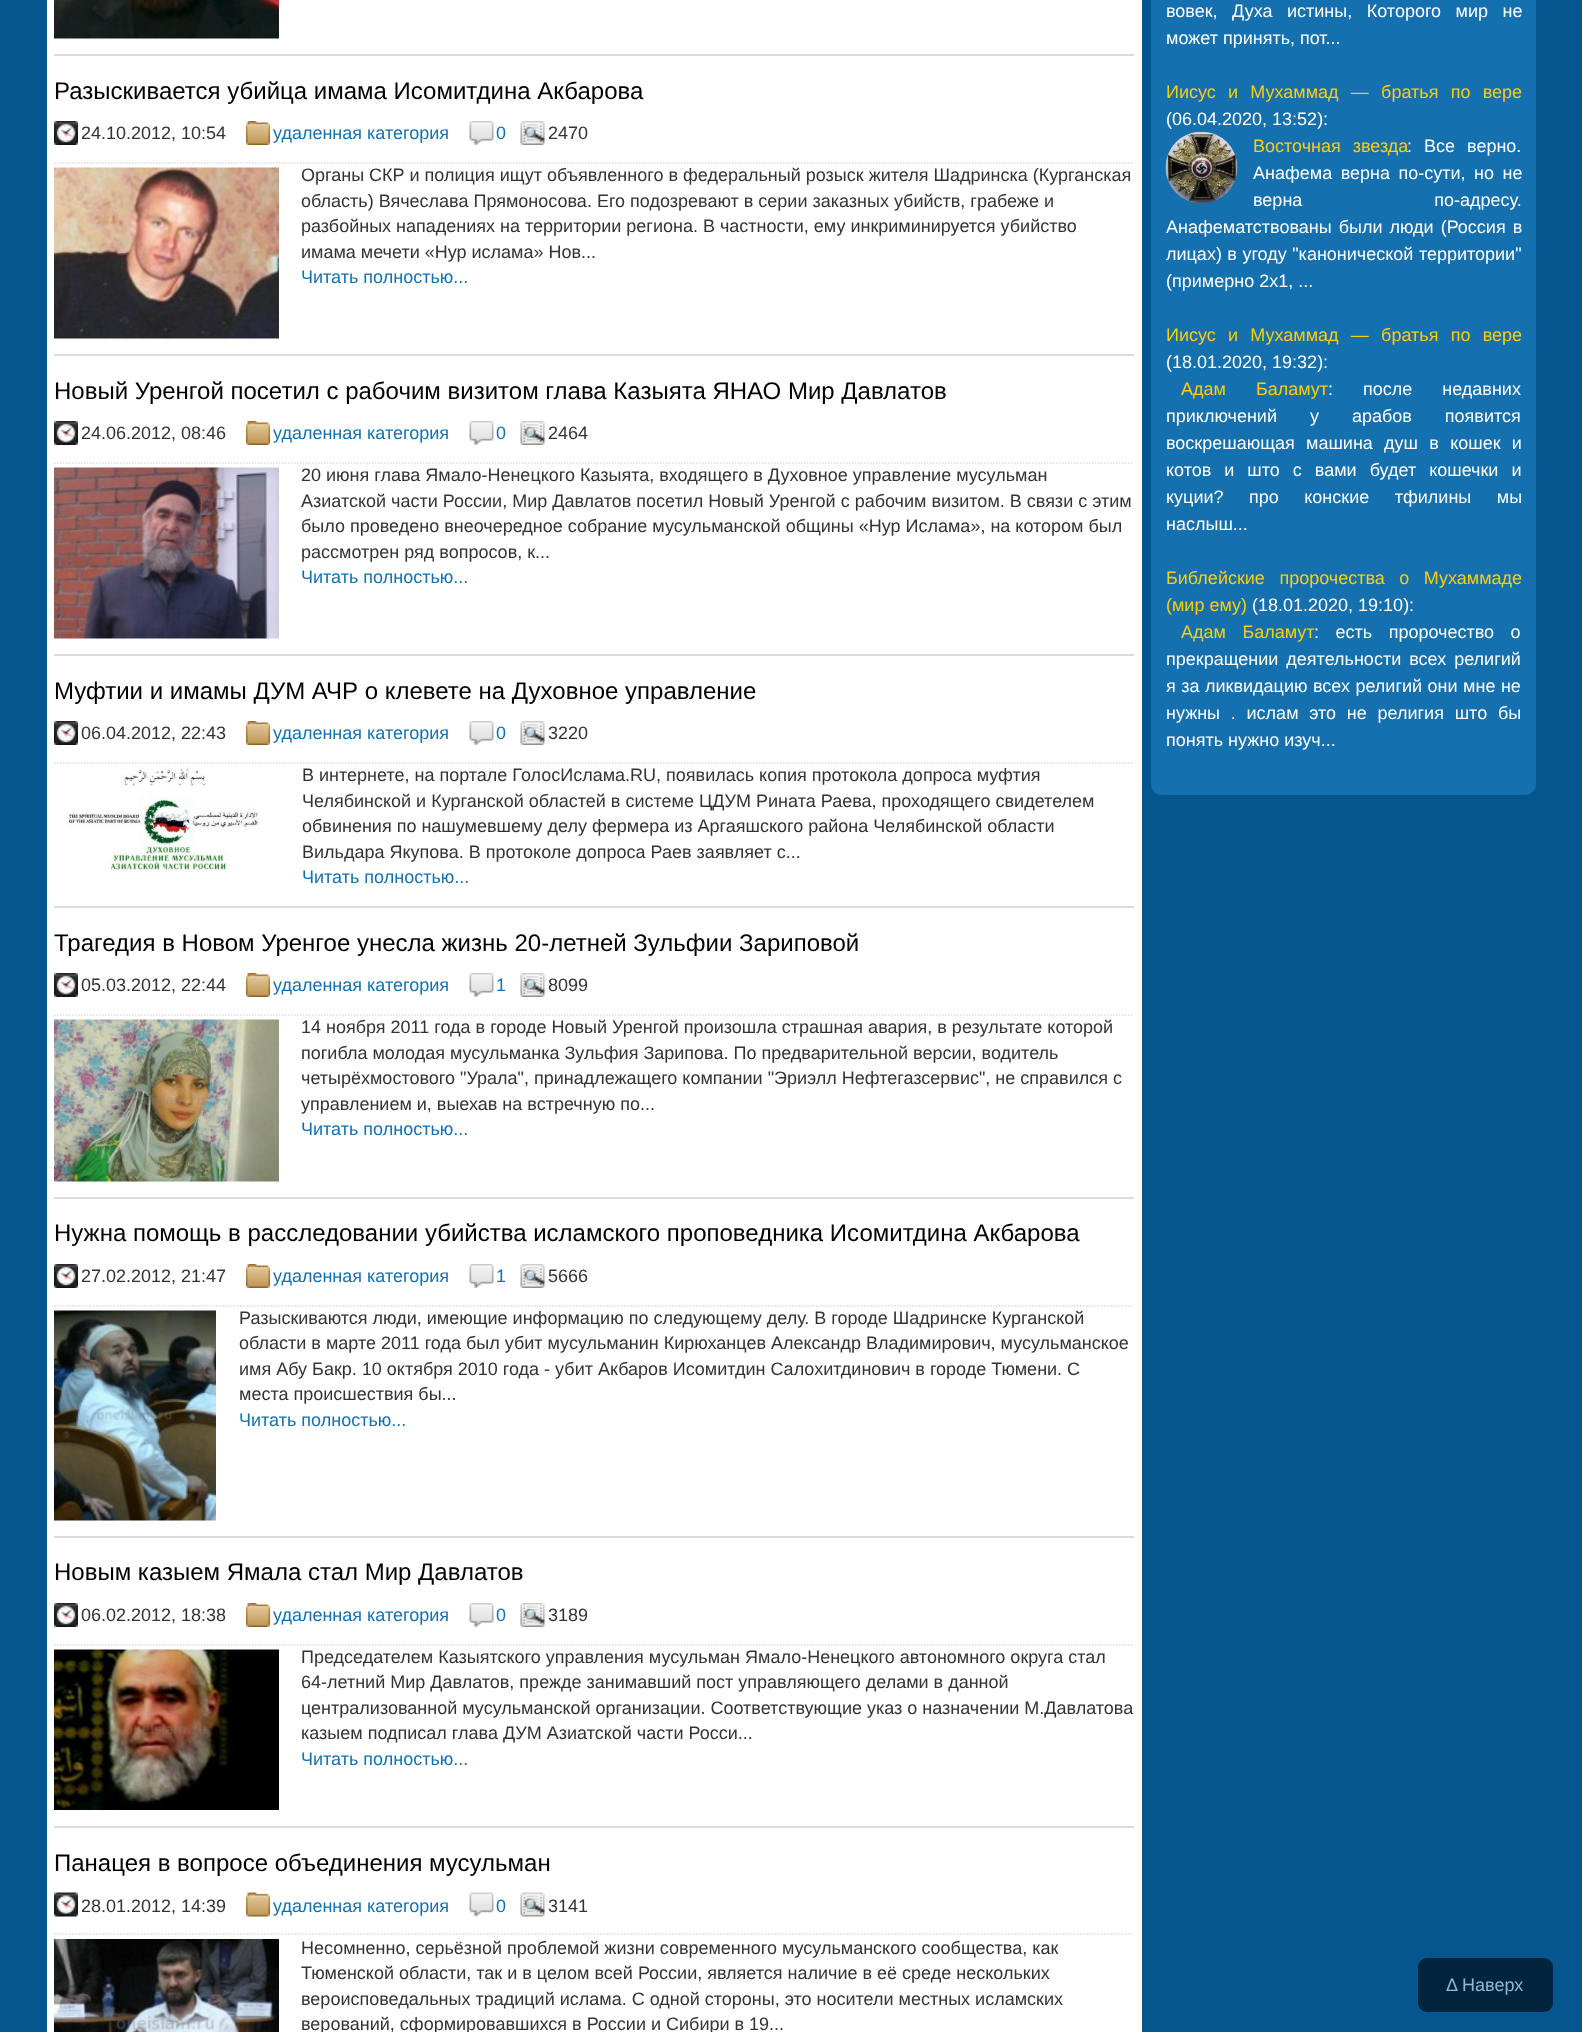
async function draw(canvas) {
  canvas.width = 1582;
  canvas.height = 2032;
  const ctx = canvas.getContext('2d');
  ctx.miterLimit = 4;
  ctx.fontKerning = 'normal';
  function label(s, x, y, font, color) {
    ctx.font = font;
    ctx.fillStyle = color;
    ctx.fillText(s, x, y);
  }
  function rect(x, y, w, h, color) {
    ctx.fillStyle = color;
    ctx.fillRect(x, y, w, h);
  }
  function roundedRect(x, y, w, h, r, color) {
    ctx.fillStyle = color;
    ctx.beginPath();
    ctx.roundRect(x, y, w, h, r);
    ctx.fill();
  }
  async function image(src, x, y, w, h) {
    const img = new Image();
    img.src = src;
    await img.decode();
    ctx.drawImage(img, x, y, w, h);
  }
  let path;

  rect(0, 0, 1582, 2032, '#05568e');
  rect(47, 0, 1095, 2032, '#fff');
  rect(54, 54, 1080, 2, '#ddd');
  await image('assets/img1.png', 54, 0, 225, 39);
  rect(54, 354, 1080, 2, '#ddd');
  label('Разыскивается убийца имама Исомитдина Акбарова', 54, 99, '24px Liberation Sans', '#000');
  path = new Path2D('M54 163H1134');
  ctx.strokeStyle = '#ddd';
  ctx.lineWidth = 1.5;
  ctx.setLineDash([1.5, 1.5]);
  ctx.stroke(path);
  await image('assets/img2.png', 54, 121, 24, 24);
  label('24.10.2012, 10:54', 81, 139, '18px Liberation Sans', '#333');
  await image('assets/img3.png', 246, 121, 24, 24);
  label('удаленная категория', 273, 139, '18px Liberation Sans', '#1470af');
  await image('assets/img4.png', 469, 121, 25, 24);
  label('0', 496, 139, '18px Liberation Sans', '#1470af');
  await image('assets/img5.png', 520, 121, 25, 24);
  label('2470', 548, 139, '18px Liberation Sans', '#333');
  await image('assets/img6.png', 54, 167, 225, 172);
  label('Органы СКР и полиция ищут объявленного в федеральный розыск жителя Шадринска (Курганская', 301, 181, '18px Liberation Sans', '#333');
  label('область) Вячеслава Прямоносова. Его подозревают в серии заказных убийств, грабеже и', 301, 207, '18px Liberation Sans', '#333');
  label('разбойных нападениях на территории региона. В частности, ему инкриминируется убийство', 301, 232, '18px Liberation Sans', '#333');
  label('имама мечети «Нур ислама» Нов...', 301, 258, '18px Liberation Sans', '#333');
  label('Читать полностью...', 301, 283, '18px Liberation Sans', '#1470af');
  rect(54, 654, 1080, 2, '#ddd');
  label('Новый Уренгой посетил с рабочим визитом глава Казыята ЯНАО Мир Давлатов', 54, 399, '24px Liberation Sans', '#000');
  path = new Path2D('M54 463H1134');
  ctx.stroke(path);
  await image('assets/img2.png', 54, 421, 24, 24);
  label('24.06.2012, 08:46', 81, 439, '18px Liberation Sans', '#333');
  await image('assets/img3.png', 246, 421, 24, 24);
  label('удаленная категория', 273, 439, '18px Liberation Sans', '#1470af');
  await image('assets/img4.png', 469, 421, 25, 24);
  label('0', 496, 439, '18px Liberation Sans', '#1470af');
  await image('assets/img5.png', 520, 421, 25, 24);
  label('2464', 548, 439, '18px Liberation Sans', '#333');
  await image('assets/img7.png', 54, 467, 225, 172);
  label('20 июня глава Ямало-Ненецкого Казыята, входящего в Духовное управление мусульман', 301, 481, '18px Liberation Sans', '#333');
  label('Азиатской части России, Мир Давлатов посетил Новый Уренгой с рабочим визитом. В связи с этим', 301, 507, '18px Liberation Sans', '#333');
  label('было проведено внеочередное собрание мусульманской общины «Нур Ислама», на котором был', 301, 532, '18px Liberation Sans', '#333');
  label('рассмотрен ряд вопросов, к...', 301, 558, '18px Liberation Sans', '#333');
  label('Читать полностью...', 301, 583, '18px Liberation Sans', '#1470af');
  rect(54, 906, 1080, 2, '#ddd');
  label('Муфтии и имамы ДУМ АЧР о клевете на Духовное управление', 54, 699, '24px Liberation Sans', '#000');
  path = new Path2D('M54 763H1134');
  ctx.stroke(path);
  await image('assets/img2.png', 54, 721, 24, 24);
  label('06.04.2012, 22:43', 81, 739, '18px Liberation Sans', '#333');
  await image('assets/img3.png', 246, 721, 24, 24);
  label('удаленная категория', 273, 739, '18px Liberation Sans', '#1470af');
  await image('assets/img4.png', 469, 721, 25, 24);
  label('0', 496, 739, '18px Liberation Sans', '#1470af');
  await image('assets/img5.png', 520, 721, 25, 24);
  label('3220', 548, 739, '18px Liberation Sans', '#333');
  await image('assets/img8.png', 67, 767, 194, 106);
  label('В интернете, на портале ГолосИслама.RU, появилась копия протокола допроса муфтия', 302, 781, '18px Liberation Sans', '#333');
  label('Челябинской и Курганской областей в системе ЦДУМ Рината Раева, проходящего свидетелем', 302, 807, '18px Liberation Sans', '#333');
  label('обвинения по нашумевшему делу фермера из Аргаяшского района Челябинской области', 302, 832, '18px Liberation Sans', '#333');
  label('Вильдара Якупова. В протоколе допроса Раев заявляет с...', 302, 858, '18px Liberation Sans', '#333');
  label('Читать полностью...', 302, 883, '18px Liberation Sans', '#1470af');
  rect(54, 1197, 1080, 2, '#ddd');
  label('Трагедия в Новом Уренгое унесла жизнь 20-летней Зульфии Зариповой', 54, 951, '24px Liberation Sans', '#000');
  path = new Path2D('M54 1015H1134');
  ctx.stroke(path);
  await image('assets/img2.png', 54, 973, 24, 24);
  label('05.03.2012, 22:44', 81, 991, '18px Liberation Sans', '#333');
  await image('assets/img3.png', 246, 973, 24, 24);
  label('удаленная категория', 273, 991, '18px Liberation Sans', '#1470af');
  await image('assets/img4.png', 469, 973, 25, 24);
  label('1', 496, 991, '18px Liberation Sans', '#1470af');
  await image('assets/img5.png', 520, 973, 25, 24);
  label('8099', 548, 991, '18px Liberation Sans', '#333');
  await image('assets/img9.png', 54, 1019, 225, 163);
  label('14 ноября 2011 года в городе Новый Уренгой произошла страшная авария, в результате которой', 301, 1033, '18px Liberation Sans', '#333');
  label('погибла молодая мусульманка Зульфия Зарипова. По предварительной версии, водитель', 301, 1059, '18px Liberation Sans', '#333');
  label('четырёхмостового "Урала", принадлежащего компании "Эриэлл Нефтегазсервис", не справился с', 301, 1084, '18px Liberation Sans', '#333');
  label('управлением и, выехав на встречную по...', 301, 1110, '18px Liberation Sans', '#333');
  label('Читать полностью...', 301, 1135, '18px Liberation Sans', '#1470af');
  rect(54, 1536, 1080, 2, '#ddd');
  label('Нужна помощь в расследовании убийства исламского проповедника Исомитдина Акбарова', 54, 1241, '24px Liberation Sans', '#000');
  path = new Path2D('M54 1306H1134');
  ctx.stroke(path);
  await image('assets/img2.png', 54, 1264, 24, 24);
  label('27.02.2012, 21:47', 81, 1282, '18px Liberation Sans', '#333');
  await image('assets/img3.png', 246, 1264, 24, 24);
  label('удаленная категория', 273, 1282, '18px Liberation Sans', '#1470af');
  await image('assets/img4.png', 469, 1264, 25, 24);
  label('1', 496, 1282, '18px Liberation Sans', '#1470af');
  await image('assets/img5.png', 520, 1264, 25, 24);
  label('5666', 548, 1282, '18px Liberation Sans', '#333');
  await image('assets/img10.png', 54, 1310, 162, 211);
  label('Разыскиваются люди, имеющие информацию по следующему делу. В городе Шадринске Курганской', 239, 1324, '18px Liberation Sans', '#333');
  label('области в марте 2011 года был убит мусульманин Кирюханцев Александр Владимирович, мусульманское', 239, 1349, '18px Liberation Sans', '#333');
  label('имя Абу Бакр. 10 октября 2010 года - убит Акбаров Исомитдин Салохитдинович в городе Тюмени. С', 239, 1375, '18px Liberation Sans', '#333');
  label('места происшествия бы...', 239, 1400, '18px Liberation Sans', '#333');
  label('Читать полностью...', 239, 1426, '18px Liberation Sans', '#1470af');
  rect(54, 1826, 1080, 2, '#ddd');
  label('Новым казыем Ямала стал Мир Давлатов', 54, 1580, '24px Liberation Sans', '#000');
  path = new Path2D('M54 1645H1134');
  ctx.stroke(path);
  await image('assets/img2.png', 54, 1603, 24, 24);
  label('06.02.2012, 18:38', 81, 1621, '18px Liberation Sans', '#333');
  await image('assets/img3.png', 246, 1603, 24, 24);
  label('удаленная категория', 273, 1621, '18px Liberation Sans', '#1470af');
  await image('assets/img4.png', 469, 1603, 25, 24);
  label('0', 496, 1621, '18px Liberation Sans', '#1470af');
  await image('assets/img5.png', 520, 1603, 25, 24);
  label('3189', 548, 1621, '18px Liberation Sans', '#333');
  await image('assets/img11.png', 54, 1649, 225, 161);
  label('Председателем Казыятского управления мусульман Ямало-Ненецкого автономного округа стал', 301, 1663, '18px Liberation Sans', '#333');
  label('64-летний Мир Давлатов, прежде занимавший пост управляющего делами в данной', 301, 1688, '18px Liberation Sans', '#333');
  label('централизованной мусульманской организации. Соответствующие указ о назначении М.Давлатова', 301, 1714, '18px Liberation Sans', '#333');
  label('казыем подписал глава ДУМ Азиатской части Росси...', 301, 1739, '18px Liberation Sans', '#333');
  label('Читать полностью...', 301, 1765, '18px Liberation Sans', '#1470af');
  label('Панацея в вопросе объединения мусульман', 54, 1871, '24px Liberation Sans', '#000');
  path = new Path2D('M54 1934H1134');
  ctx.stroke(path);
  await image('assets/img12.png', 54, 1892, 24, 25);
  label('28.01.2012, 14:39', 81, 1912, '18px Liberation Sans', '#333');
  await image('assets/img13.png', 246, 1892, 24, 25);
  label('удаленная категория', 273, 1912, '18px Liberation Sans', '#1470af');
  await image('assets/img14.png', 469, 1892, 25, 25);
  label('0', 496, 1912, '18px Liberation Sans', '#1470af');
  await image('assets/img15.png', 520, 1892, 25, 25);
  label('3141', 548, 1912, '18px Liberation Sans', '#333');
  await image('assets/img16.png', 54, 1939, 225, 93);
  label('Несомненно, серьёзной проблемой жизни современного мусульманского сообщества, как', 301, 1954, '18px Liberation Sans', '#333');
  label('Тюменской области, так и в целом всей России, является наличие в её среде нескольких', 301, 1979, '18px Liberation Sans', '#333');
  label('вероисповедальных традиций ислама. С одной стороны, это носители местных исламских', 301, 2005, '18px Liberation Sans', '#333');
  label('верований, сформировавшихся в России и Сибири в 19...', 301, 2030, '18px Liberation Sans', '#333');
  roundedRect(1151, -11, 385, 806, 11, '#1470af');
  ctx.wordSpacing = '9.5px';
  label('вовек, Духа истины, Которого мир не', 1166, 17, '18px Liberation Sans', '#fff');
  ctx.wordSpacing = '0px';
  label('может принять, пот...', 1166, 44, '18px Liberation Sans', '#fff');
  ctx.wordSpacing = '7.25px';
  label('Иисус и Мухаммад — братья по вере', 1166, 98, '18px Liberation Sans', '#fdce0c');
  ctx.wordSpacing = '0px';
  label('(06.04.2020, 13:52):', 1166, 125, '18px Liberation Sans', '#fff');
  await image('assets/img17.png', 1165, 131, 73, 73);
  ctx.wordSpacing = '7px';
  label('Восточная звезда', 1253, 152, '18px Liberation Sans', '#fdce0c');
  label(': Все верно.', 1407, 152, '18px Liberation Sans', '#fff');
  ctx.wordSpacing = '3.5px';
  label('Анафема верна по-сути, но не', 1253, 179, '18px Liberation Sans', '#fff');
  ctx.wordSpacing = '127px';
  label('верна по-адресу.', 1253, 206, '18px Liberation Sans', '#fff');
  ctx.wordSpacing = '2px';
  label('Анафематствованы были люди (Россия в', 1166, 233, '18px Liberation Sans', '#fff');
  ctx.wordSpacing = '0.5px';
  label('лицах) в угоду "канонической территории"', 1166, 260, '18px Liberation Sans', '#fff');
  ctx.wordSpacing = '0px';
  label('(примерно 2х1, ...', 1166, 287, '18px Liberation Sans', '#fff');
  ctx.wordSpacing = '7.25px';
  label('Иисус и Мухаммад — братья по вере', 1166, 341, '18px Liberation Sans', '#fdce0c');
  ctx.wordSpacing = '0px';
  label('(18.01.2020, 19:32):', 1166, 368, '18px Liberation Sans', '#fff');
  ctx.wordSpacing = '25px';
  label('Адам Баламут', 1181, 395, '18px Liberation Sans', '#fdce0c');
  label(': после недавних', 1328, 395, '18px Liberation Sans', '#fff');
  ctx.wordSpacing = '28px';
  label('приключений у арабов появится', 1166, 422, '18px Liberation Sans', '#fff');
  ctx.wordSpacing = '6.25px';
  label('воскрешающая машина душ в кошек и', 1166, 449, '18px Liberation Sans', '#fff');
  ctx.wordSpacing = '8px';
  label('котов и што с вами будет кошечки и', 1166, 476, '18px Liberation Sans', '#fff');
  ctx.wordSpacing = '20.5px';
  label('куции? про конские тфилины мы', 1166, 503, '18px Liberation Sans', '#fff');
  ctx.wordSpacing = '0px';
  label('наслыш...', 1166, 530, '18px Liberation Sans', '#fff');
  ctx.wordSpacing = '9.5px';
  label('Библейские пророчества о Мухаммаде', 1166, 584, '18px Liberation Sans', '#fdce0c');
  ctx.wordSpacing = '0px';
  label('(мир ему)', 1166, 611, '18px Liberation Sans', '#fdce0c');
  label('(18.01.2020, 19:10):', 1252, 611, '18px Liberation Sans', '#fff');
  ctx.wordSpacing = '11.5px';
  label('Адам Баламут', 1181, 638, '18px Liberation Sans', '#fdce0c');
  label(': есть пророчество о', 1314, 638, '18px Liberation Sans', '#fff');
  ctx.wordSpacing = '3px';
  label('прекращении деятельности всех религий', 1166, 665, '18px Liberation Sans', '#fff');
  ctx.wordSpacing = '0.5px';
  label('я за ликвидацию всех религий они мне не', 1166, 692, '18px Liberation Sans', '#fff');
  ctx.wordSpacing = '5.75px';
  label('нужны . ислам это не религия што бы', 1166, 719, '18px Liberation Sans', '#fff');
  ctx.wordSpacing = '0px';
  label('понять нужно изуч...', 1166, 746, '18px Liberation Sans', '#fff');
  roundedRect(1418, 1958, 135, 54, 9, '#02243c');
  label('Δ Наверх', 1446, 1991, '18px Liberation Sans', '#95b7cf');
}

draw(document.querySelector('canvas'));
